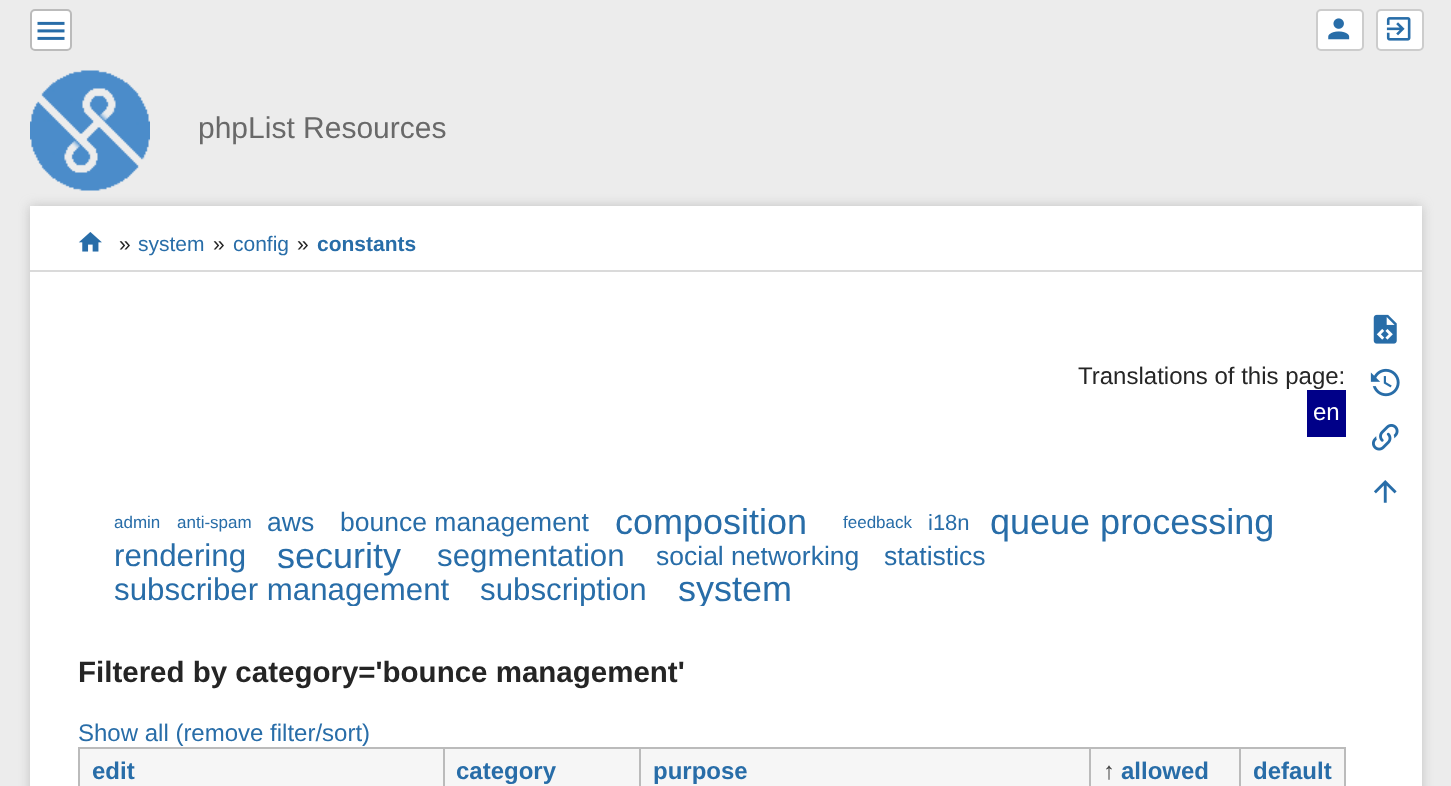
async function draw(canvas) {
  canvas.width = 1451;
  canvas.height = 786;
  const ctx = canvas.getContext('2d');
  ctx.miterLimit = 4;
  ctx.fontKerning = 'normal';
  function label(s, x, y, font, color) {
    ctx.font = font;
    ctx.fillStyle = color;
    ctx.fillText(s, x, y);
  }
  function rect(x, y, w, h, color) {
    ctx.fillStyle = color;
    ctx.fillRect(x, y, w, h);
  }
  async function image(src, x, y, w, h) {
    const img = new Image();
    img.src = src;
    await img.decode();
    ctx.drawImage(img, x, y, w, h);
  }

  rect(0, 0, 1451, 786, '#ececec');
  ctx.fillStyle = '#fff';
  ctx.beginPath();
  ctx.roundRect(1317, 10, 46, 40, 4);
  ctx.fill();
  ctx.strokeStyle = '#ccc';
  ctx.lineWidth = 2;
  ctx.stroke();
  await image('assets/img1.png', 1328, 18, 22, 22);
  ctx.beginPath();
  ctx.roundRect(1377, 10, 46, 40, 4);
  ctx.fill();
  ctx.stroke();
  await image('assets/img2.png', 1386, 17, 25, 24);
  ctx.beginPath();
  ctx.roundRect(31, 10, 40, 40, 4);
  ctx.fill();
  ctx.strokeStyle = '#bbb';
  ctx.stroke();
  await image('assets/img3.png', 37, 21, 28, 19);
  await image('assets/img4.png', 30, 70, 120, 121);
  label('phpList Resources', 198, 138, '30px Liberation Sans', '#696969');
  ctx.fillStyle = '#99999980';
  ctx.filter = 'blur(6px)';
  ctx.beginPath();
  ctx.rect(30, 206, 1392, 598);
  ctx.fill();
  ctx.filter = 'none';
  rect(30, 206, 1392, 64, '#fff');
  rect(30, 270, 1392, 2, '#dadada');
  await image('assets/img5.png', 78, 232, 24, 20);
  label('»', 119, 251, '21px Liberation Sans', '#252525');
  label('system', 138, 251, '21px Liberation Sans', '#286da8');
  label('»', 213, 251, '21px Liberation Sans', '#252525');
  label('config', 233, 251, '21px Liberation Sans', '#286da8');
  label('»', 297, 251, '21px Liberation Sans', '#252525');
  label('constants', 317, 251, 'bold 21px Liberation Sans', '#286da8');
  rect(30, 272, 1392, 514, '#fff');
  await image('assets/img6.png', 1373, 314, 24, 30);
  await image('assets/img7.png', 1370, 368, 30, 29);
  await image('assets/img8.png', 1372, 424, 27, 27);
  await image('assets/img9.png', 1374, 480, 23, 23);
  label('Translations of this page:', 1078, 384, '24px Liberation Sans', '#252525');
  rect(1307, 390, 39, 47, '#008');
  label('en', 1313, 420, '24px Liberation Sans', '#fff');
  label('admin', 114, 528, '17px Liberation Sans', '#286da8');
  label('anti-spam', 177, 528, '17px Liberation Sans', '#286da8');
  label('aws', 267, 531, '26.5px Liberation Sans', '#286da8');
  label('bounce management', 340, 531, '26.5px Liberation Sans', '#286da8');
  label('composition', 615, 534, '36px Liberation Sans', '#286da8');
  label('feedback', 843, 528, '17px Liberation Sans', '#286da8');
  label('i18n', 928, 530, '22px Liberation Sans', '#286da8');
  label('queue processing', 990, 534, '36px Liberation Sans', '#286da8');
  label('rendering', 114, 566, '31.25px Liberation Sans', '#286da8');
  label('security', 277, 568, '36px Liberation Sans', '#286da8');
  label('segmentation', 437, 566, '31.25px Liberation Sans', '#286da8');
  label('social networking', 656, 565, '26.5px Liberation Sans', '#286da8');
  label('statistics', 884, 565, '26.5px Liberation Sans', '#286da8');
  ctx.save();
  ctx.beginPath();
  ctx.rect(78, 506, 1268, 100);
  ctx.clip();
  label('subscriber management', 114, 600, '31.25px Liberation Sans', '#286da8');
  label('subscription', 480, 600, '31.25px Liberation Sans', '#286da8');
  label('system', 678, 601, '36px Liberation Sans', '#286da8');
  ctx.restore();
  label('Filtered by category=\'bounce management\'', 78, 682, 'bold 29.5px Liberation Sans', '#252525');
  label('Show all (remove filter/sort)', 78, 741, '24px Liberation Sans', '#286da8');
  rect(78, 747, 1268, 2, '#bbb');
  rect(1344, 747, 2, 39, '#bbb');
  rect(78, 747, 2, 39, '#bbb');
  rect(80, 749, 363, 37, '#f6f6f6');
  label('edit', 92, 779, 'bold 24px Liberation Sans', '#286da8');
  rect(445, 749, 194, 37, '#f6f6f6');
  rect(443, 747, 2, 39, '#bbb');
  label('category', 456, 779, 'bold 24px Liberation Sans', '#286da8');
  rect(641, 749, 448, 37, '#f6f6f6');
  rect(639, 747, 2, 39, '#bbb');
  label('purpose', 653, 779, 'bold 24px Liberation Sans', '#286da8');
  rect(1091, 749, 148, 37, '#f6f6f6');
  rect(1089, 747, 2, 39, '#bbb');
  label('↑', 1103, 779, 'bold 24px Liberation Sans', '#454545');
  label('allowed', 1121, 779, 'bold 24px Liberation Sans', '#286da8');
  rect(1241, 749, 103, 37, '#f6f6f6');
  rect(1239, 747, 2, 39, '#bbb');
  label('default', 1253, 779, 'bold 24px Liberation Sans', '#286da8');
}

draw(document.querySelector('canvas'));
